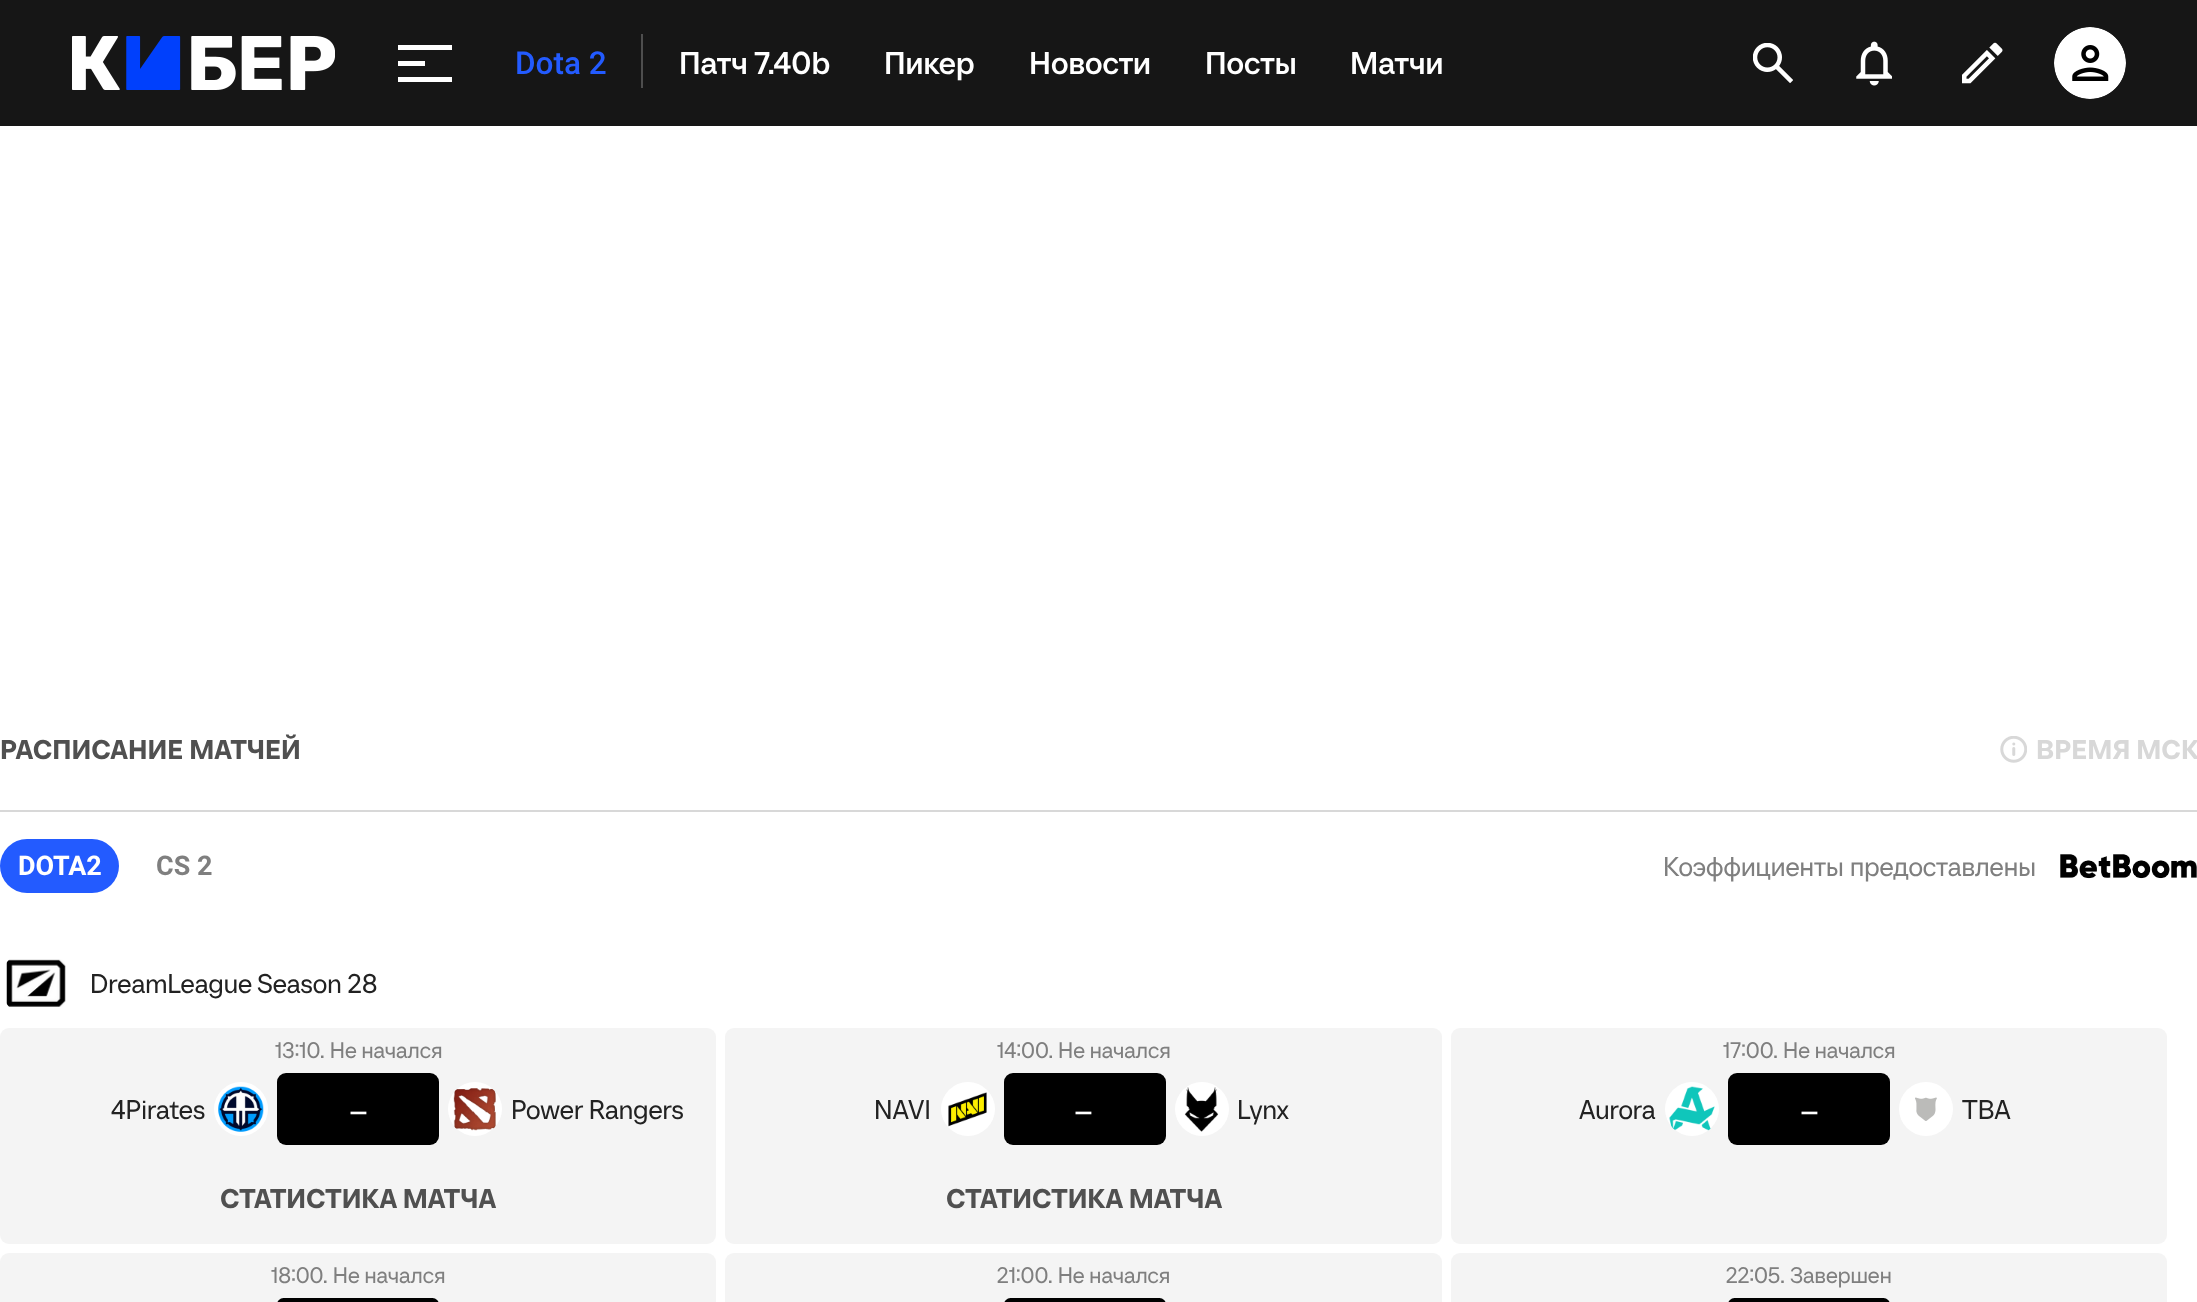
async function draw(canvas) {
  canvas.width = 2197;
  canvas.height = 1302;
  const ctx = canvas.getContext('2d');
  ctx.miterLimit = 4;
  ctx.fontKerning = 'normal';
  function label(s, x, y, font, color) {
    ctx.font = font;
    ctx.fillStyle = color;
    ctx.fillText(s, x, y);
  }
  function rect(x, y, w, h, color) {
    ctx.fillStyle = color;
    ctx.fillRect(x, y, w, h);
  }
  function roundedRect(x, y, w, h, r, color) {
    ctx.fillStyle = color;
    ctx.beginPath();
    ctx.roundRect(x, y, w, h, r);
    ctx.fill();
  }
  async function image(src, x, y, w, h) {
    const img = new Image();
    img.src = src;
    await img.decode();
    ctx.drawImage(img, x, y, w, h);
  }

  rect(0, 0, 2197, 1302, '#fff');
  rect(0, 0, 2197, 126, '#161616');
  await image('assets/img1.png', 72, 36, 263, 54);
  rect(398, 45, 54, 5, '#fff');
  rect(398, 61, 27, 5, '#fff');
  rect(398, 77, 54, 5, '#fff');
  label('Dota 2', 515, 74, '500 31.5px Roboto', '#235bff');
  rect(641, 34, 2, 54, '#4e4e4e');
  label('Патч 7.40b', 679, 74, '500 31.5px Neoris', '#fff');
  label('Пикер', 884, 74, '500 31.5px Neoris', '#fff');
  label('Новости', 1029, 74, '500 31.5px Neoris', '#fff');
  label('Посты', 1205, 74, '500 31.5px Neoris', '#fff');
  label('Матчи', 1350, 74, '500 31.5px Neoris', '#fff');
  await image('assets/img2.png', 1753, 43, 40, 40);
  await image('assets/img3.png', 1856, 41, 36, 45);
  await image('assets/img4.png', 1962, 42, 41, 42);
  await image('assets/img5.png', 2054, 27, 72, 72);
  rect(0, 810, 2197, 2, '#d8d8d8');
  label('РАСПИСАНИЕ МАТЧЕЙ', 0, 759, '600 27px Neoris', '#505050');
  await image('assets/img6.png', 2000, 736, 27, 27);
  label('ВРЕМЯ МСК', 2036, 759, '600 27px Neoris', '#d8d8d8');
  roundedRect(0, 839, 119, 54, 27, '#235bff');
  label('DOTA2', 18, 875, 'bold 27px Roboto', '#fff');
  label('CS 2', 156, 875, 'bold 27px Roboto', '#7f7f7f');
  label('Коэффициенты предоставлены', 1663, 876, '27px Neoris', '#7f7f7f');
  await image('assets/img7.png', 2060, 854, 137, 25);
  await image('assets/img8.png', 6, 959, 60, 48);
  label('DreamLeague Season 28', 90, 993, '27px Neoris', '#222');
  roundedRect(0, 1028, 716, 216, 9, '#f4f4f4');
  label('13:10. Не начался', 275, 1058, '22.5px Neoris', '#7f7f7f');
  label('4Pirates', 111, 1119, '27px Neoris', '#222');
  ctx.fillStyle = '#fff';
  ctx.beginPath();
  ctx.arc(241, 1109, 27, 0, 2 * Math.PI);
  ctx.fill();
  await image('assets/img9.png', 218, 1086, 46, 46);
  roundedRect(277, 1073, 162, 72, 9, '#000');
  label('–', 349, 1121, '31.5px Neoris', '#fff');
  ctx.beginPath();
  ctx.arc(475, 1109, 27, 0, 2 * Math.PI);
  ctx.fill();
  await image('assets/img10.png', 453, 1088, 43, 43);
  label('Power Rangers', 511, 1119, '27px Neoris', '#222');
  label('СТАТИСТИКА МАТЧА', 220, 1208, '600 27px Neoris', '#505050');
  roundedRect(725, 1028, 717, 216, 9, '#f4f4f4');
  label('14:00. Не начался', 997, 1058, '22.5px Neoris', '#7f7f7f');
  label('NAVI', 874, 1119, '27px Neoris', '#222');
  ctx.fillStyle = '#fff';
  ctx.beginPath();
  ctx.arc(968, 1109, 27, 0, 2 * Math.PI);
  ctx.fill();
  await image('assets/img11.png', 948, 1092, 39, 35);
  roundedRect(1004, 1073, 162, 72, 9, '#000');
  label('–', 1074, 1121, '31.5px Neoris', '#fff');
  ctx.beginPath();
  ctx.arc(1202, 1109, 27, 0, 2 * Math.PI);
  ctx.fill();
  await image('assets/img12.png', 1184, 1087, 35, 45);
  label('Lynx', 1237, 1119, '27px Neoris', '#222');
  label('СТАТИСТИКА МАТЧА', 946, 1208, '600 27px Neoris', '#505050');
  roundedRect(1451, 1028, 716, 216, 9, '#f4f4f4');
  label('17:00. Не начался', 1723, 1058, '22.5px Neoris', '#7f7f7f');
  label('Aurora', 1579, 1119, '27px Neoris', '#222');
  ctx.fillStyle = '#fff';
  ctx.beginPath();
  ctx.arc(1692, 1109, 27, 0, 2 * Math.PI);
  ctx.fill();
  await image('assets/img13.png', 1669, 1086, 46, 45);
  roundedRect(1728, 1073, 162, 72, 9, '#000');
  label('–', 1800, 1121, '31.5px Neoris', '#fff');
  ctx.beginPath();
  ctx.arc(1926, 1109, 27, 0, 2 * Math.PI);
  ctx.fill();
  await image('assets/img14.png', 1915, 1097, 22, 24);
  label('TBA', 1962, 1119, '27px Neoris', '#222');
  roundedRect(0, 1253, 716, 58, 9, '#f4f4f4');
  label('18:00. Не начался', 271, 1283, '22.5px Neoris', '#7f7f7f');
  roundedRect(277, 1298, 162, 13, 9, '#000');
  roundedRect(725, 1253, 717, 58, 9, '#f4f4f4');
  label('21:00. Не начался', 997, 1283, '22.5px Neoris', '#7f7f7f');
  roundedRect(1004, 1298, 162, 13, 9, '#000');
  roundedRect(1451, 1253, 716, 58, 9, '#f4f4f4');
  label('22:05. Завершен', 1726, 1283, '22.5px Neoris', '#7f7f7f');
  roundedRect(1728, 1298, 162, 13, 9, '#000');
}

draw(document.querySelector('canvas'));
